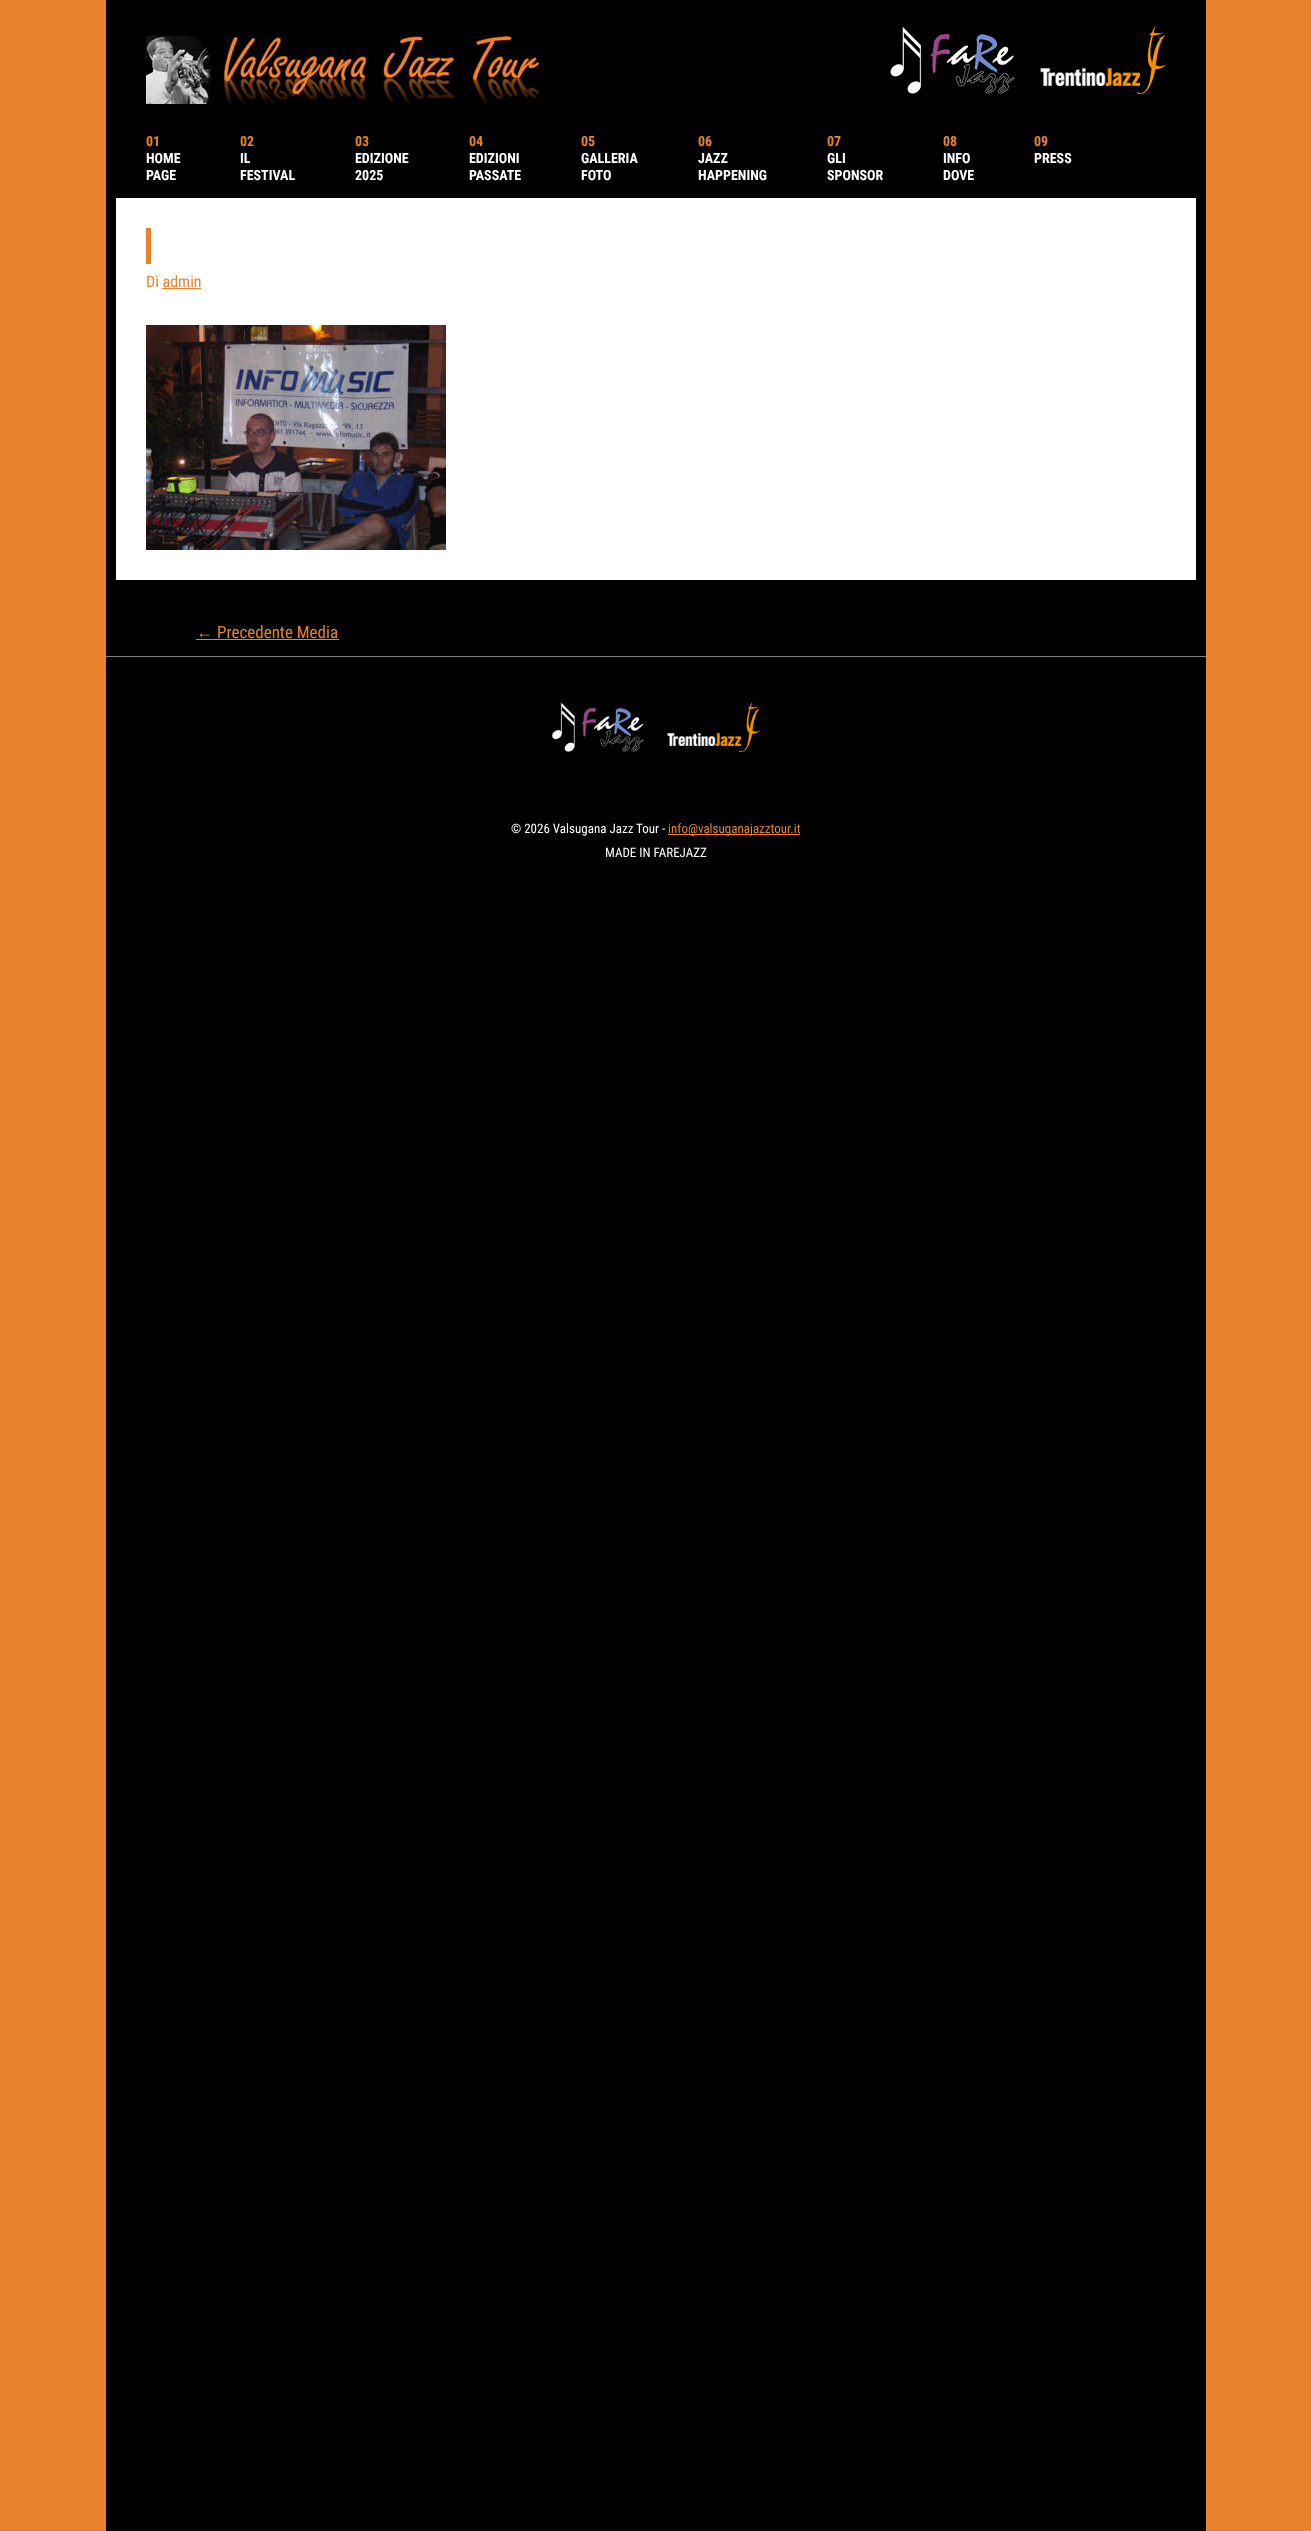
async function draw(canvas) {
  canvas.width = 1311;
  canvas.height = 2531;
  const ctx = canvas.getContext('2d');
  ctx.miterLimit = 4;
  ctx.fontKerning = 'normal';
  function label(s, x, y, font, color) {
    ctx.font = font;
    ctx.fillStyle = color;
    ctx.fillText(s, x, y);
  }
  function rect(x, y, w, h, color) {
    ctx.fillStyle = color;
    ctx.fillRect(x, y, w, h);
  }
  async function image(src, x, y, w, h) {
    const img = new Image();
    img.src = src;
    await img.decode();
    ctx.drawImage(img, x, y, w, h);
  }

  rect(0, 0, 1311, 2531, '#ea822c');
  rect(106, 0, 1100, 2531, '#000');
  await image('assets/img1.png', 146, 36, 400, 68);
  await image('assets/img2.png', 890, 27, 125, 67);
  await image('assets/img3.png', 1040, 26, 126, 68);
  label('01', 146, 146, 'bold 14px Roboto Condensed', '#ea822c');
  label('HOME', 146, 163, 'bold 14px Roboto Condensed', '#fff');
  label('PAGE', 146, 180, 'bold 14px Roboto Condensed', '#fff');
  label('02', 240, 146, 'bold 14px Roboto Condensed', '#ea822c');
  label('IL', 240, 163, 'bold 14px Roboto Condensed', '#fff');
  label('FESTIVAL', 240, 180, 'bold 14px Roboto Condensed', '#fff');
  label('03', 355, 146, 'bold 14px Roboto Condensed', '#ea822c');
  label('EDIZIONE', 355, 163, 'bold 14px Roboto Condensed', '#fff');
  label('2025', 355, 180, 'bold 14px Roboto Condensed', '#fff');
  label('04', 469, 146, 'bold 14px Roboto Condensed', '#ea822c');
  label('EDIZIONI', 469, 163, 'bold 14px Roboto Condensed', '#fff');
  label('PASSATE', 469, 180, 'bold 14px Roboto Condensed', '#fff');
  label('05', 581, 146, 'bold 14px Roboto Condensed', '#ea822c');
  label('GALLERIA', 581, 163, 'bold 14px Roboto Condensed', '#fff');
  label('FOTO', 581, 180, 'bold 14px Roboto Condensed', '#fff');
  label('06', 698, 146, 'bold 14px Roboto Condensed', '#ea822c');
  label('JAZZ', 698, 163, 'bold 14px Roboto Condensed', '#fff');
  label('HAPPENING', 698, 180, 'bold 14px Roboto Condensed', '#fff');
  label('07', 827, 146, 'bold 14px Roboto Condensed', '#ea822c');
  label('GLI', 827, 163, 'bold 14px Roboto Condensed', '#fff');
  label('SPONSOR', 827, 180, 'bold 14px Roboto Condensed', '#fff');
  label('08', 943, 146, 'bold 14px Roboto Condensed', '#ea822c');
  label('INFO', 943, 163, 'bold 14px Roboto Condensed', '#fff');
  label('DOVE', 943, 180, 'bold 14px Roboto Condensed', '#fff');
  label('09', 1034, 146, 'bold 14px Roboto Condensed', '#ea822c');
  label('PRESS', 1034, 163, 'bold 14px Roboto Condensed', '#fff');
  rect(116, 198, 1080, 382, '#fff');
  rect(146, 228, 5, 36, '#ea822c');
  label('Di admin', 146, 287, '16px Roboto Condensed', '#ea822c');
  rect(162, 288, 39, 1, '#ea822c');
  await image('assets/img4.png', 146, 325, 300, 225);
  label('←', 196, 638, '17px Liberation Sans', '#ea822c');
  rect(196, 639, 143, 1, '#ea822c');
  label('Precedente Media', 217, 638, '17px Roboto Condensed', '#ea822c');
  rect(106, 656, 1100, 1, '#808080');
  await image('assets/img5.png', 551, 702, 93, 50);
  await image('assets/img6.png', 667, 702, 93, 50);
  label('© 2026 Valsugana Jazz Tour -', 511, 833, '13px Roboto Condensed', '#fff');
  rect(668, 834, 132, 1, '#ea822c');
  label('info@valsuganajazztour.it', 668, 833, '13px Roboto Condensed', '#ea822c');
  label('MADE IN FAREJAZZ', 605, 857, '13px Roboto Condensed', '#fff');
}

draw(document.querySelector('canvas'));
